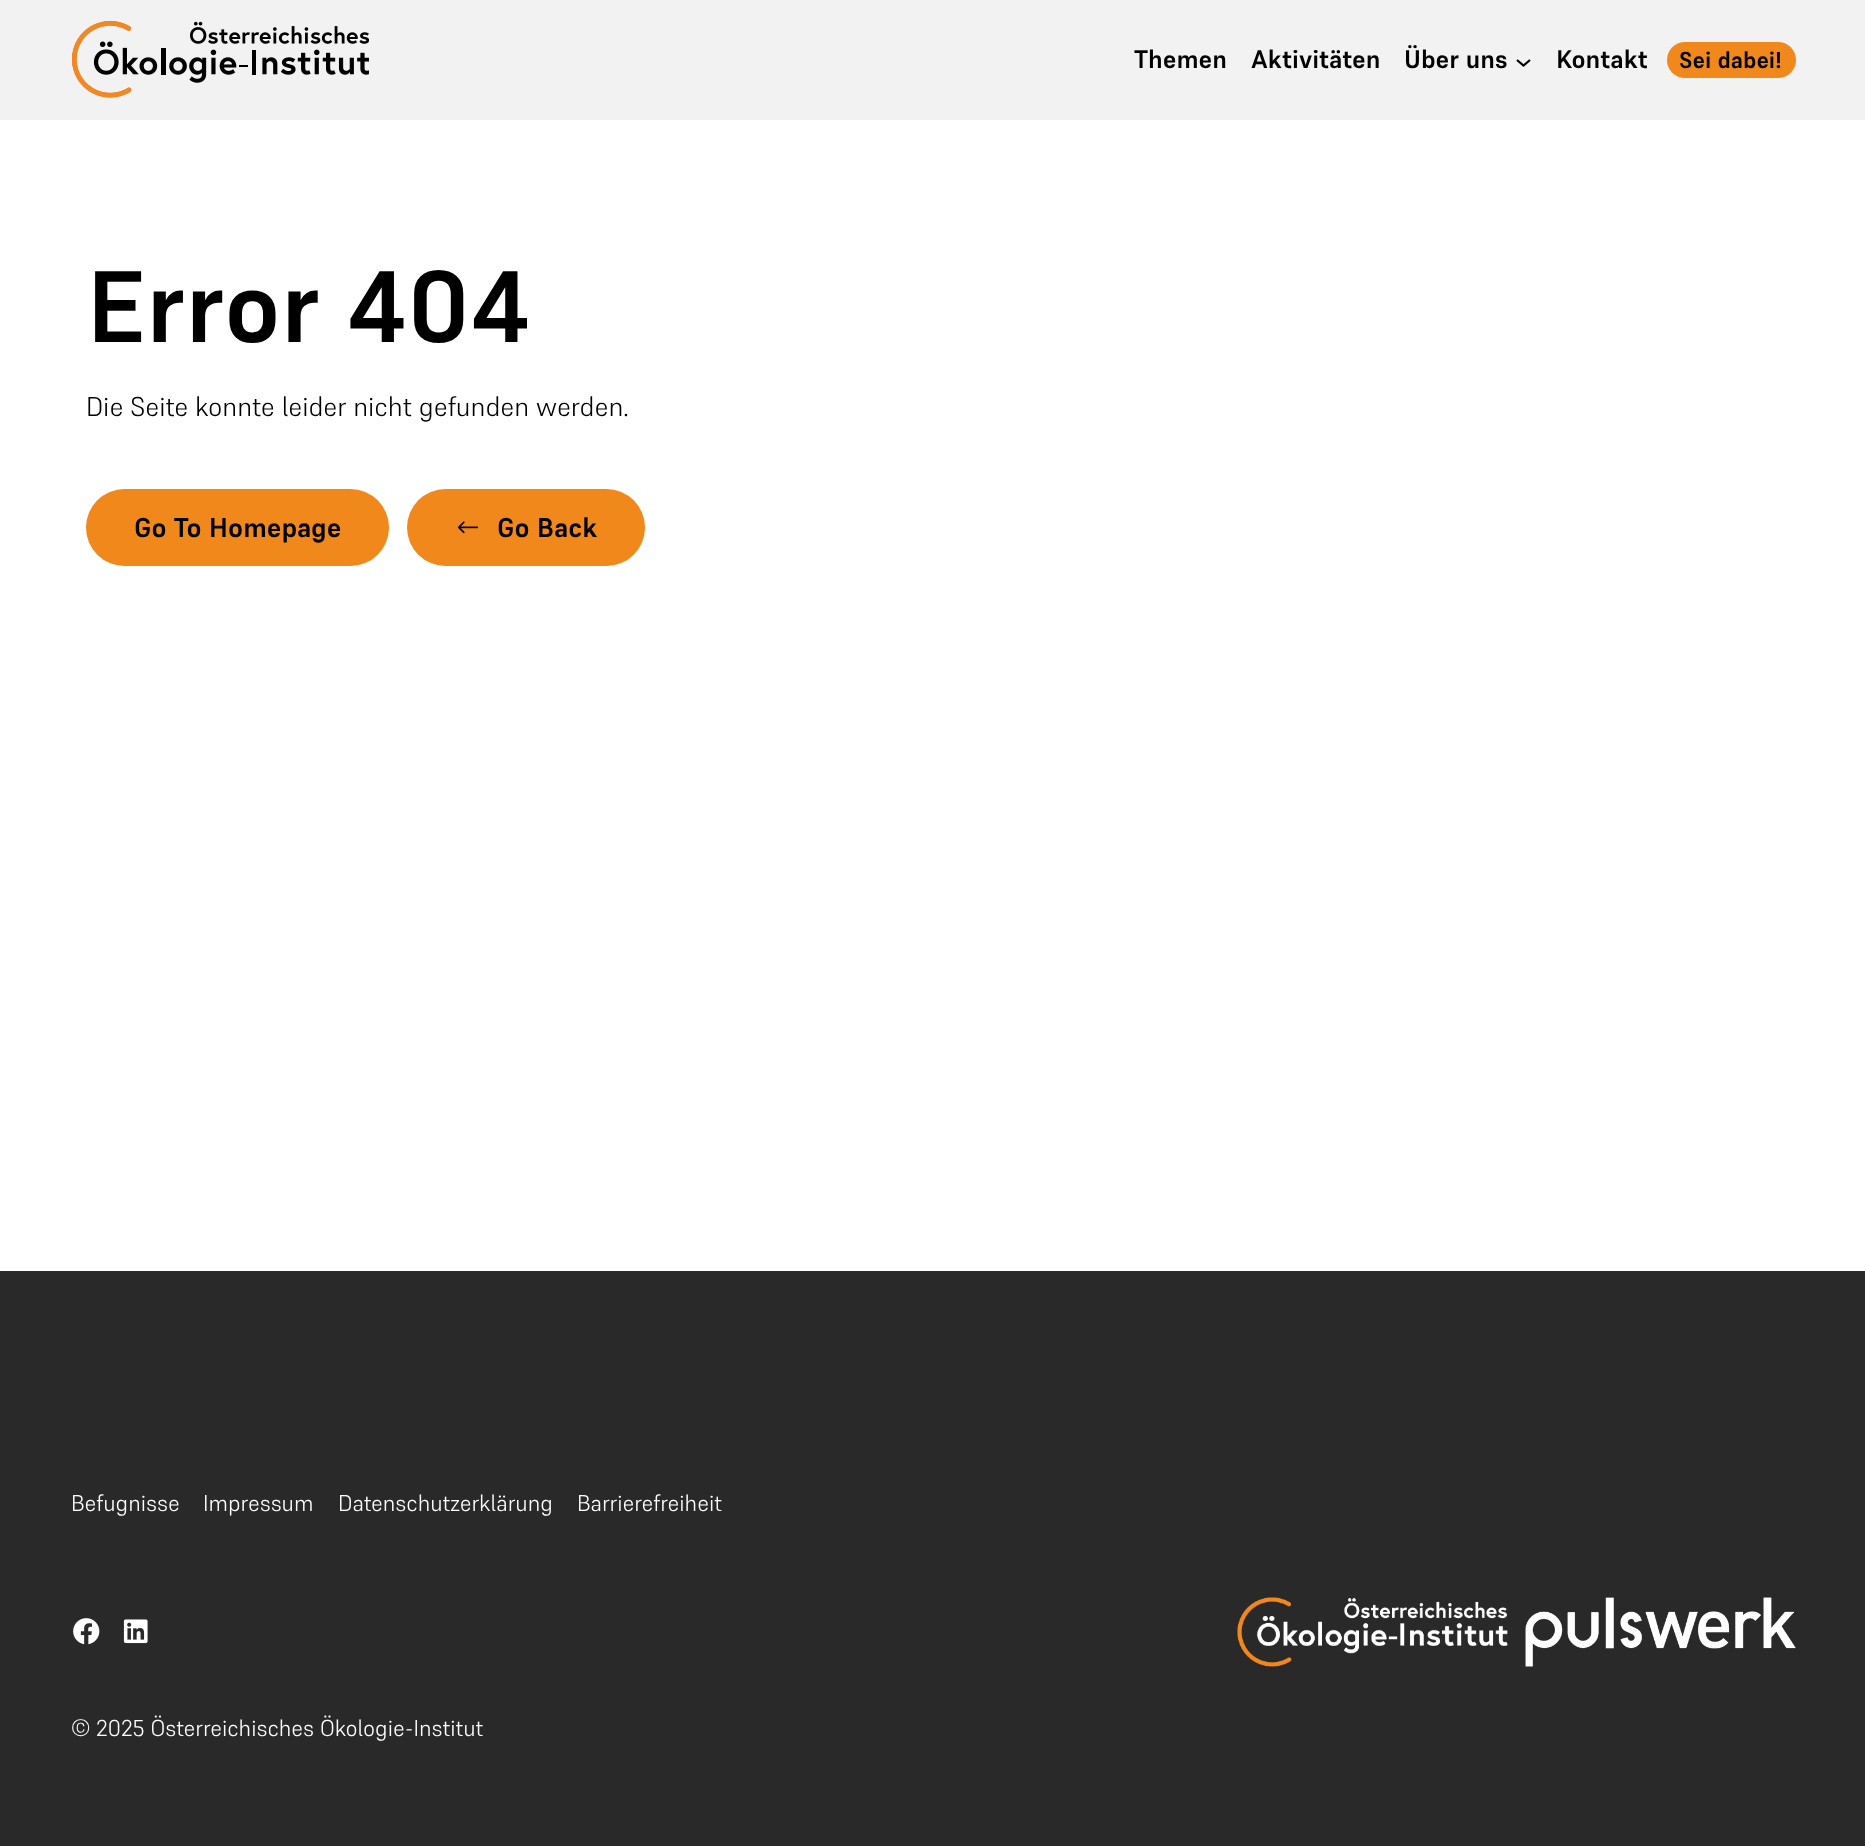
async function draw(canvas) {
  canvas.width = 1865;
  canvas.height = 1846;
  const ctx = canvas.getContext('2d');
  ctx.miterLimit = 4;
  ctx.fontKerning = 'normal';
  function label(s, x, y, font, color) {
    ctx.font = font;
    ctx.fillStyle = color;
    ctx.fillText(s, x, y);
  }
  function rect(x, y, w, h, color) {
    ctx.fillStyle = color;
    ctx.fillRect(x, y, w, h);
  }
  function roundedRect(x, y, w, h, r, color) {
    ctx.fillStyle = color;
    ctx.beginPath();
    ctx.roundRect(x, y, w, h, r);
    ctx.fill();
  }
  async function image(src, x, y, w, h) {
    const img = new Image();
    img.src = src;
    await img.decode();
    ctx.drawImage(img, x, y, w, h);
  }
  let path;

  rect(0, 0, 1865, 1846, '#fff');
  rect(0, 0, 1865, 120, '#f2f2f2');
  await image('assets/img1.png', 72, 21, 297, 77);
  label('Themen', 1134, 68, 'bold 25.25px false', '#000');
  label('Aktivitäten', 1251, 68, 'bold 25.25px false', '#000');
  label('Über uns', 1404, 68, 'bold 25.25px false', '#000');
  path = new Path2D('M1517 60L1523.5 65.5L1530 60');
  ctx.strokeStyle = '#000';
  ctx.lineWidth = 2.2;
  ctx.stroke(path);
  label('Kontakt', 1556, 68, 'bold 25.25px false', '#000');
  roundedRect(1667, 42, 129, 36, 18, '#f1881c');
  label('Sei dabei!', 1679, 68, 'bold 23px false', '#000');
  ctx.letterSpacing = '0.25px';
  label('Error 404', 86, 342, 'bold 101.25px false', '#000');
  ctx.letterSpacing = '0px';
  label('Die Seite konnte leider nicht gefunden werden.', 86, 416, '300 27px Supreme', '#000');
  roundedRect(86, 489, 303, 77, 38.5, '#f1881c');
  label('Go To Homepage', 134, 537, 'bold 27px false', '#000');
  roundedRect(407, 489, 238, 77, 38.5, '#f1881c');
  await image('assets/img2.png', 457, 521, 22, 13);
  label('Go Back', 497, 537, 'bold 27px false', '#000');
  rect(0, 1271, 1865, 575, '#292929');
  label('Befugnisse', 71, 1511, '300 22.75px Supreme', '#fff');
  label('Impressum', 203, 1511, '300 22.75px Supreme', '#fff');
  label('Datenschutzerklärung', 338, 1511, '300 22.75px Supreme', '#fff');
  label('Barrierefreiheit', 577, 1511, '300 22.75px Supreme', '#fff');
  await image('assets/img3.png', 73, 1618, 27, 27);
  await image('assets/img4.png', 123, 1619, 25, 25);
  await image('assets/img5.png', 1237, 1597, 271, 70);
  await image('assets/img6.png', 1525, 1597, 271, 70);
  label('© 2025 Österreichisches Ökologie-Institut', 71, 1736, '300 22.75px Supreme', '#fff');
}

draw(document.querySelector('canvas'));
